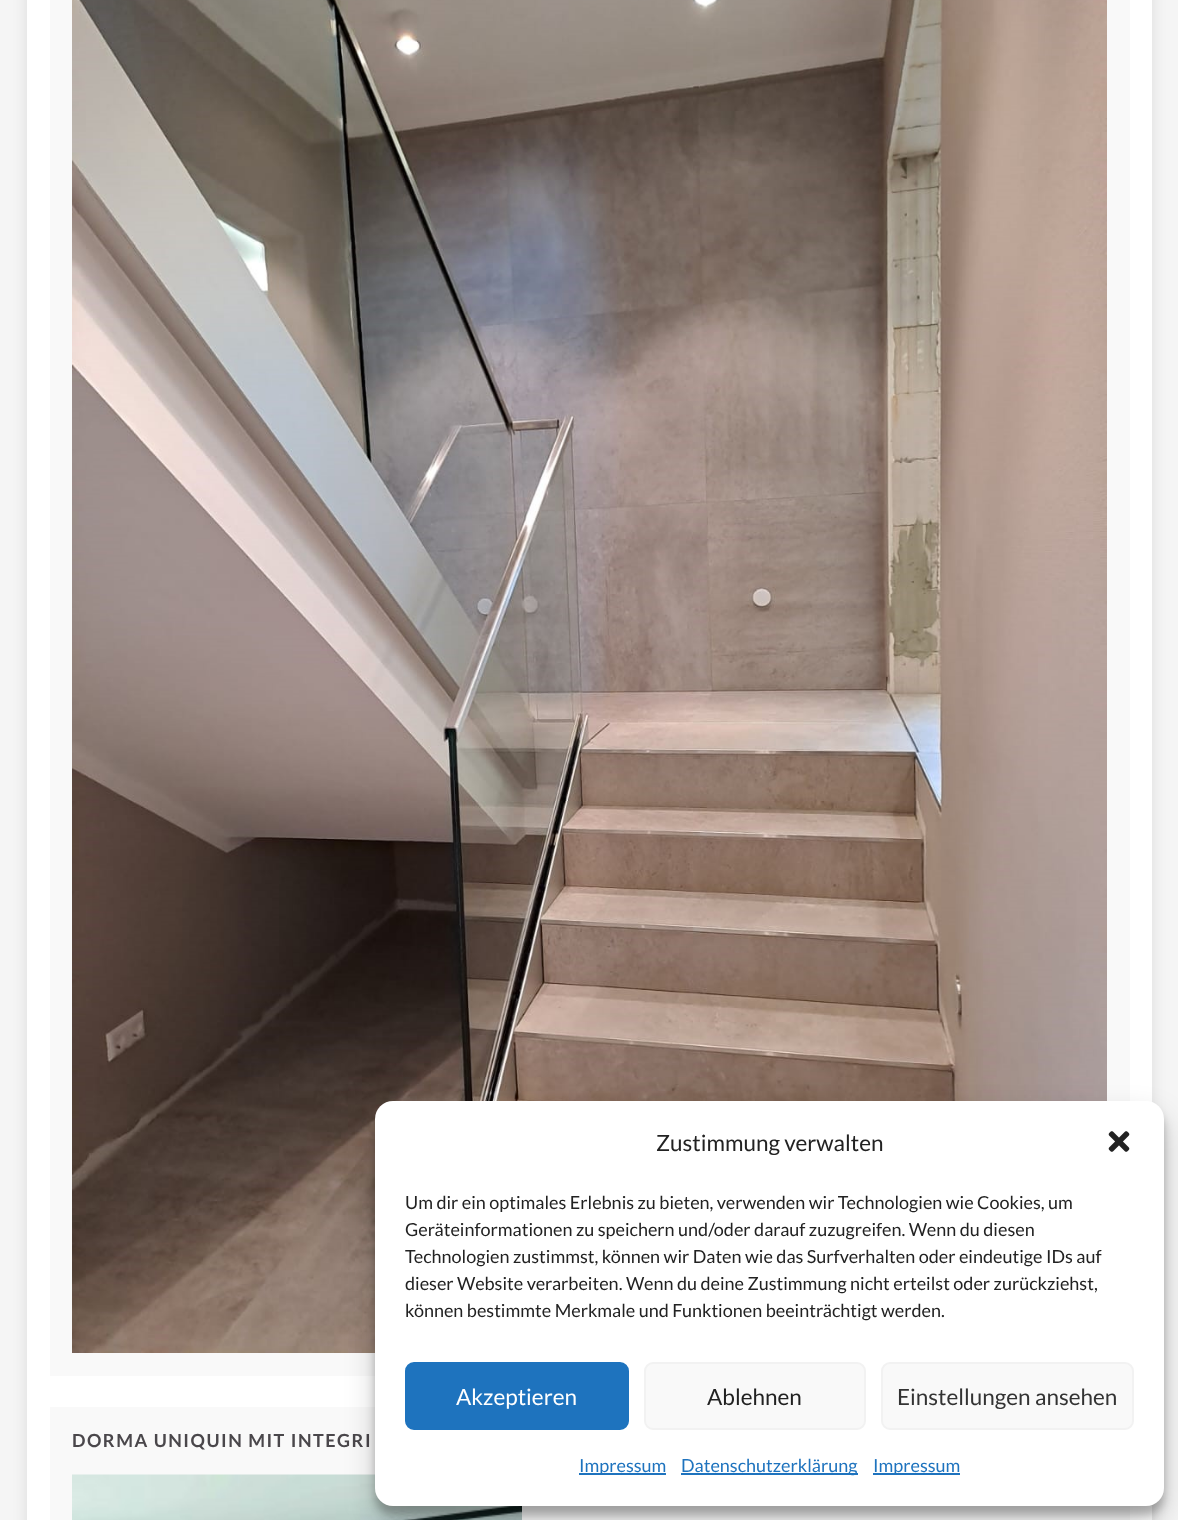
async function draw(canvas) {
  canvas.width = 1178;
  canvas.height = 1520;
  const ctx = canvas.getContext('2d');
  ctx.miterLimit = 4;
  ctx.fontKerning = 'normal';
  function label(s, x, y, font, color) {
    ctx.font = font;
    ctx.fillStyle = color;
    ctx.fillText(s, x, y);
  }
  function rect(x, y, w, h, color) {
    ctx.fillStyle = color;
    ctx.fillRect(x, y, w, h);
  }
  function roundedRect(x, y, w, h, r, color) {
    ctx.fillStyle = color;
    ctx.beginPath();
    ctx.roundRect(x, y, w, h, r);
    ctx.fill();
  }
  async function image(src, x, y, w, h) {
    const img = new Image();
    img.src = src;
    await img.decode();
    ctx.drawImage(img, x, y, w, h);
  }

  rect(0, 0, 1178, 1520, '#f5f5f5');
  ctx.fillStyle = '#0000001a';
  ctx.filter = 'blur(7.5px)';
  ctx.beginPath();
  ctx.rect(27, -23, 1125, 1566);
  ctx.fill();
  ctx.filter = 'none';
  rect(27, 0, 1125, 1520, '#fff');
  rect(50, 0, 1080, 1376, '#f9f9f9');
  await image('assets/img1.png', 72, 0, 1035, 1353);
  rect(50, 1407, 1080, 113, '#f9f9f9');
  ctx.letterSpacing = '1.5px';
  label('DORMA UNIQUIN MIT INTEGRI', 72, 1447, 'bold 18px Lato', '#4a474b');
  await image('assets/img2.png', 72, 1474, 450, 46);
  ctx.fillStyle = '#0000003b';
  ctx.filter = 'blur(4.5px)';
  ctx.beginPath();
  ctx.roundRect(375, 1110, 789, 405, 18);
  ctx.fill();
  ctx.filter = 'none';
  ctx.fillStyle = '#00000030';
  ctx.filter = 'blur(15px)';
  ctx.beginPath();
  ctx.roundRect(375, 1116, 789, 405, 18);
  ctx.fill();
  ctx.filter = 'none';
  roundedRect(375, 1101, 789, 405, 18, '#fff');
  ctx.letterSpacing = '0px';
  label('Zustimmung verwalten', 656, 1151, '22.5px Lato', '#222');
  await image('assets/img3.png', 1108, 1131, 22, 21);
  label('Um dir ein optimales Erlebnis zu bieten, verwenden wir Technologien wie Cookies, um', 405, 1209, '18px Lato', '#222');
  label('Geräteinformationen zu speichern und/oder darauf zuzugreifen. Wenn du diesen', 405, 1236, '18px Lato', '#222');
  label('Technologien zustimmst, können wir Daten wie das Surfverhalten oder eindeutige IDs auf', 405, 1263, '18px Lato', '#222');
  label('dieser Website verarbeiten. Wenn du deine Zustimmung nicht erteilst oder zurückziehst,', 405, 1290, '18px Lato', '#222');
  label('können bestimmte Merkmale und Funktionen beeinträchtigt werden.', 405, 1317, '18px Lato', '#222');
  ctx.fillStyle = '#1e73be';
  ctx.beginPath();
  ctx.roundRect(406, 1363, 222, 66, 8);
  ctx.fill();
  ctx.strokeStyle = '#1e73be';
  ctx.lineWidth = 2;
  ctx.stroke();
  label('Akzeptieren', 456, 1405, '22.5px Lato', '#fff');
  ctx.fillStyle = '#f9f9f9';
  ctx.beginPath();
  ctx.roundRect(645, 1363, 220, 66, 8);
  ctx.fill();
  ctx.strokeStyle = '#f2f2f2';
  ctx.stroke();
  label('Ablehnen', 707, 1405, '22.5px Lato', '#222');
  ctx.fillStyle = '#f9f9f9';
  ctx.beginPath();
  ctx.roundRect(882, 1363, 251, 66, 8);
  ctx.fill();
  ctx.stroke();
  label('Einstellungen ansehen', 897, 1405, '22.5px Lato', '#333');
  rect(579, 1473, 87, 2, '#1e73be');
  label('Impressum', 579, 1472, '18px Lato', '#1e73be');
  rect(681, 1473, 177, 2, '#1e73be');
  label('Datenschutzerklärung', 681, 1472, '18px Lato', '#1e73be');
  rect(873, 1473, 87, 2, '#1e73be');
  label('Impressum', 873, 1472, '18px Lato', '#1e73be');
}

draw(document.querySelector('canvas'));
